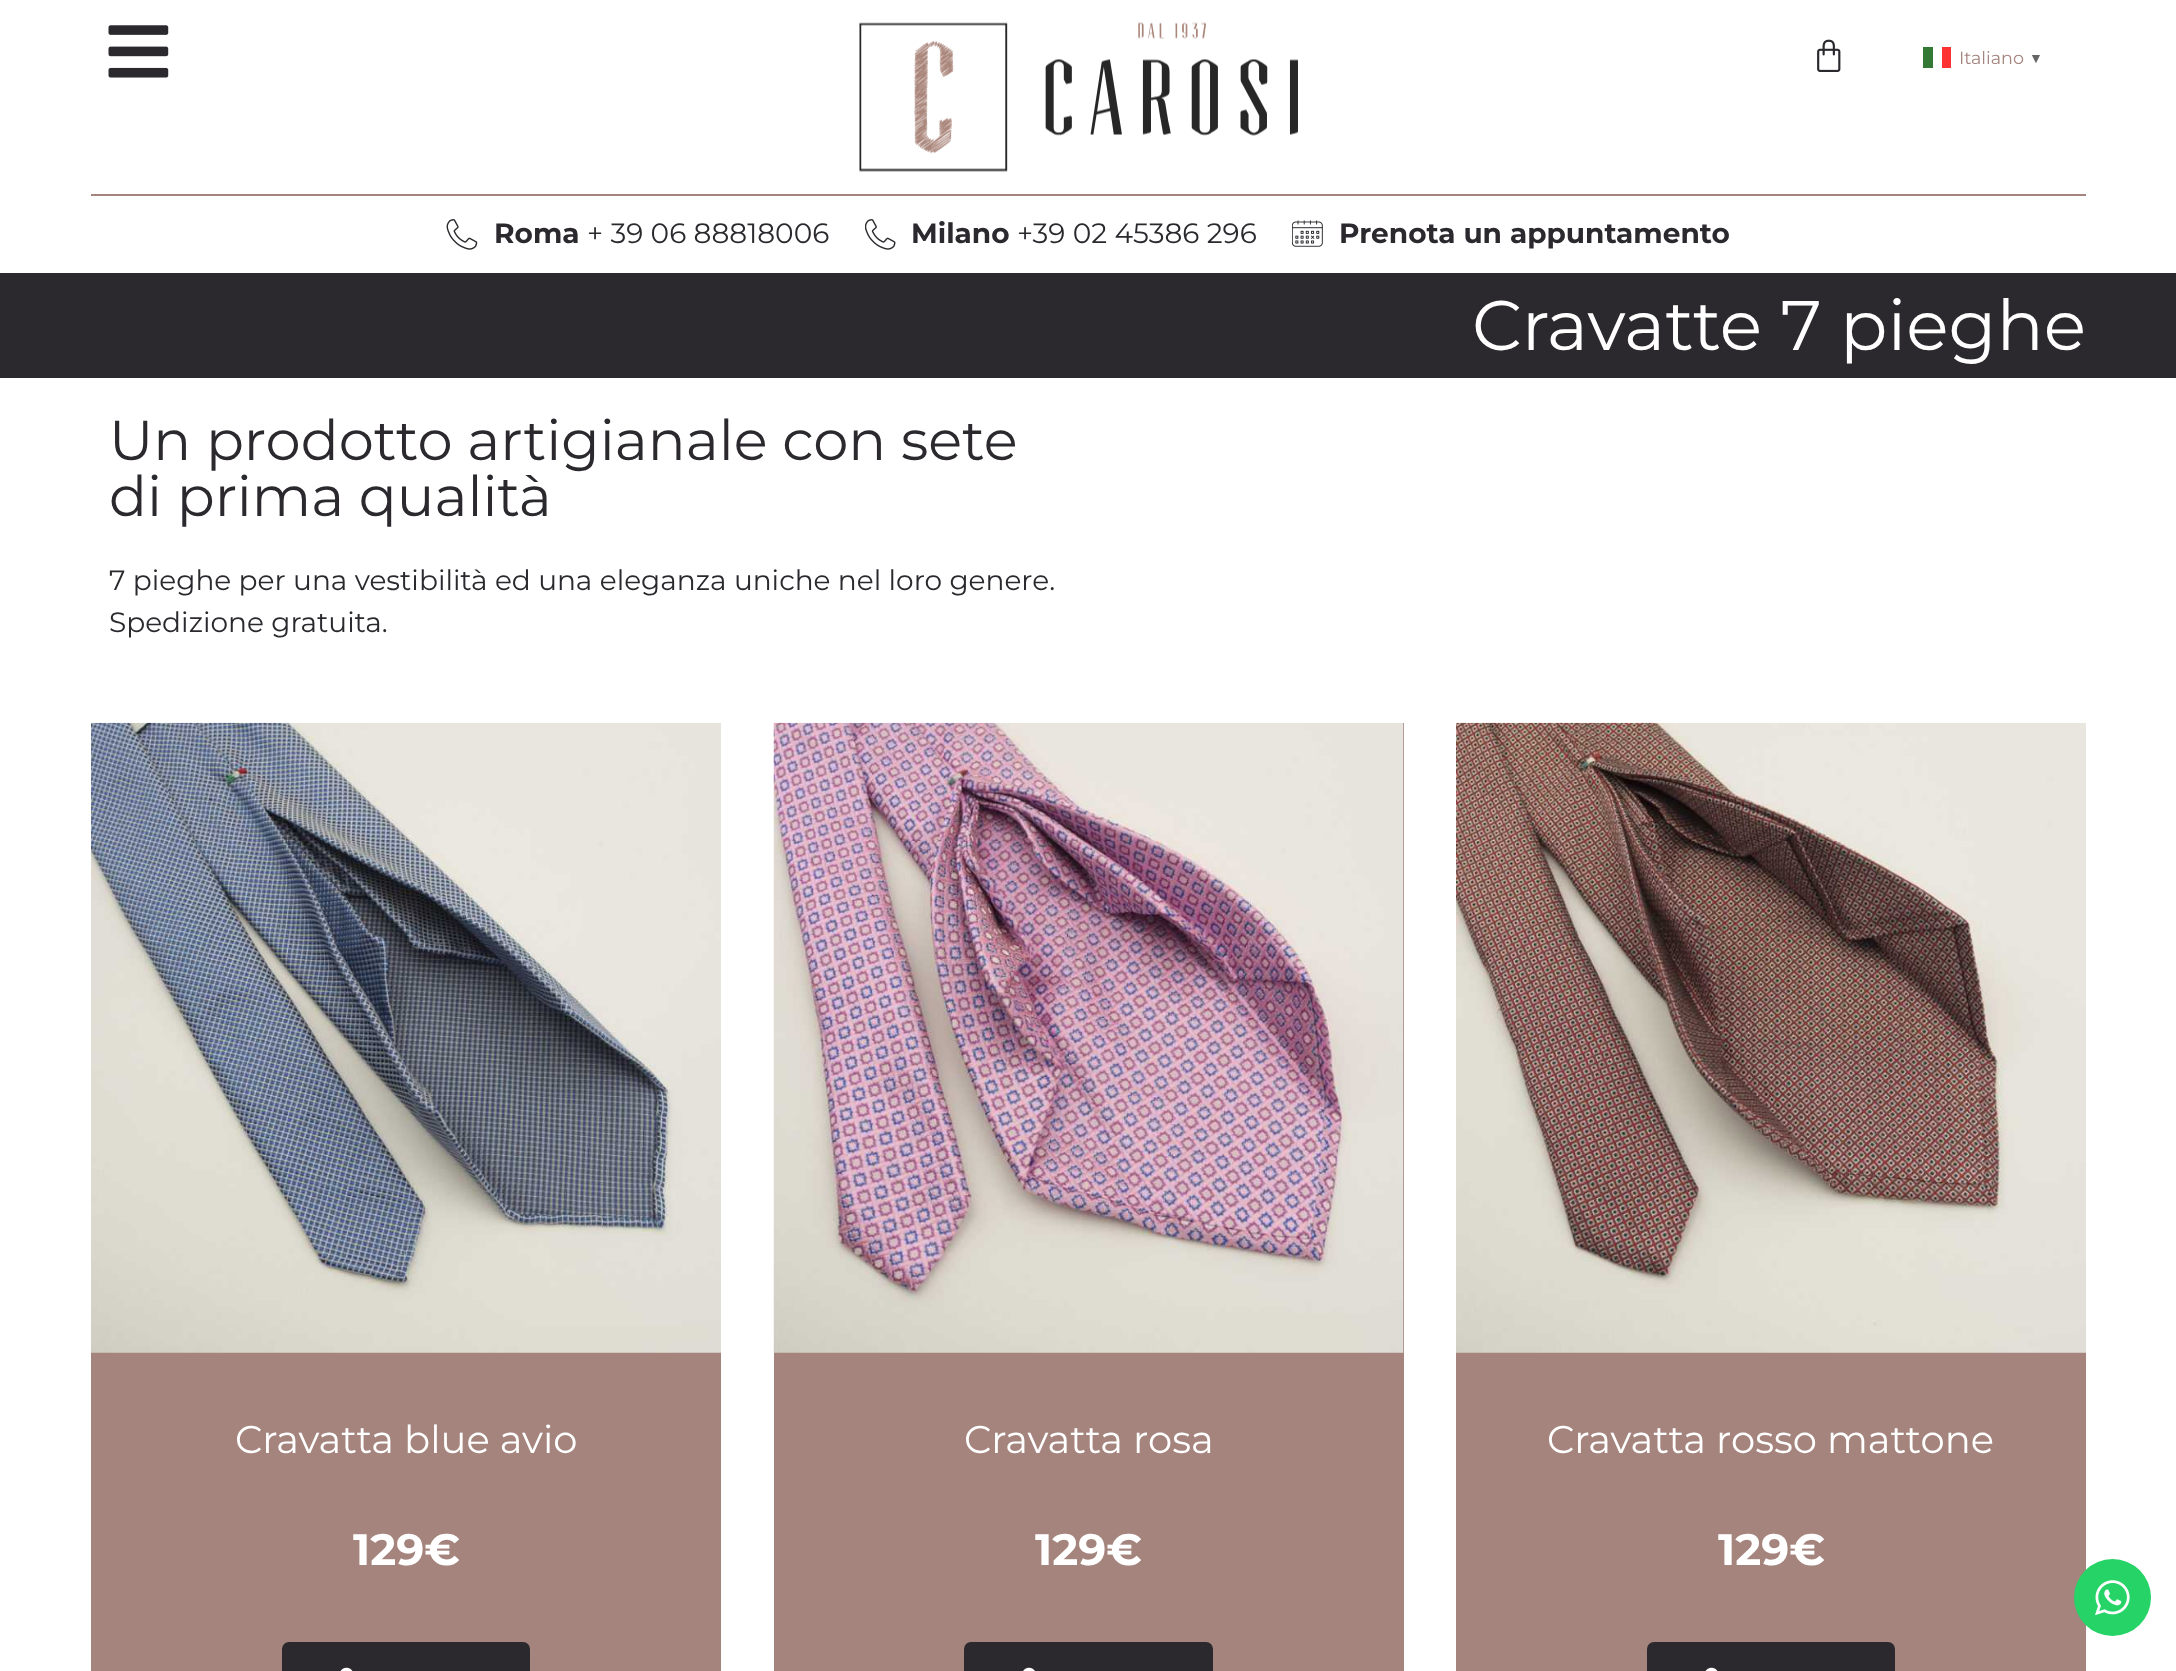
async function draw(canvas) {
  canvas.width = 2176;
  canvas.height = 1671;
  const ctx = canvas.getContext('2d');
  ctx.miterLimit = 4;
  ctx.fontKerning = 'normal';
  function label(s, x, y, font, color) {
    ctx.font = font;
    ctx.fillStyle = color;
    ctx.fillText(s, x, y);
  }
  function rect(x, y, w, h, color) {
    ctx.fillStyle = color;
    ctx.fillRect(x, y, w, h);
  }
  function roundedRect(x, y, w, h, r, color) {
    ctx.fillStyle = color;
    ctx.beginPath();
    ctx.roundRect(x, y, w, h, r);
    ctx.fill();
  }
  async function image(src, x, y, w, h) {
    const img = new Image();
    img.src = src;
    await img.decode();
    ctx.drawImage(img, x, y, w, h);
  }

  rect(0, 0, 2176, 1671, '#fff');
  await image('assets/img1.png', 108, 25, 61, 53);
  await image('assets/img2.png', 859, 22, 439, 150);
  await image('assets/img3.png', 1817, 39, 24, 33);
  label('Italiano', 1959, 64, '17.5px Montserrat', '#a4847d');
  rect(1923, 47, 10, 21, '#337933');
  rect(1942, 47, 9, 21, '#fd3333');
  label('▼', 2029, 63, 'bold 14px Liberation Sans', '#666');
  rect(91, 194, 1995, 2, '#a4847d');
  await image('assets/img4.png', 446, 219, 32, 31);
  label('Roma', 494, 243, 'bold 28px Montserrat', '#2b292e');
  label('+ 39 06 88818006', 587, 243, '28px Montserrat', '#2b292e');
  await image('assets/img5.png', 865, 219, 31, 31);
  label('Milano', 911, 243, 'bold 28px Montserrat', '#2b292e');
  label('+39 02 45386 296', 1017, 243, '28px Montserrat', '#2b292e');
  await image('assets/img6.png', 1292, 220, 31, 27);
  label('Prenota un appuntamento', 1339, 243, 'bold 28px Montserrat', '#2b292e');
  rect(0, 273, 2176, 105, '#2b292e');
  label('Cravatte 7 pieghe', 1472, 350, '70px Montserrat', '#fff');
  label('Un prodotto artigianale con sete', 109, 460, '56px Montserrat', '#2b292e');
  label('di prima qualità', 109, 516, '56px Montserrat', '#2b292e');
  label('7 pieghe per una vestibilità ed una eleganza uniche nel loro genere.', 109, 590, '28px Montserrat', '#2b292e');
  label('Spedizione gratuita.', 109, 632, '28px Montserrat', '#2b292e');
  rect(91, 1352, 630, 319, '#a4847d');
  await image('assets/img7.png', 91, 722, 630, 631);
  label('Cravatta blue avio', 235, 1453, '38.5px Montserrat', '#fff');
  label('129€', 353, 1565, 'bold 44px Montserrat', '#fff');
  roundedRect(282, 1642, 248, 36, 7, '#2b292e');
  await image('assets/img8.png', 340, 1667, 13, 4);
  rect(774, 723, 630, 948, '#a4847d');
  await image('assets/img9.png', 773, 722, 631, 631);
  label('Cravatta rosa', 964, 1453, '38.5px Montserrat', '#fff');
  label('129€', 1035, 1565, 'bold 44px Montserrat', '#fff');
  roundedRect(964, 1642, 249, 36, 7, '#2b292e');
  await image('assets/img10.png', 1023, 1667, 12, 4);
  rect(1456, 1352, 630, 319, '#a4847d');
  await image('assets/img11.png', 1456, 722, 630, 631);
  label('Cravatta rosso mattone', 1547, 1453, '38.5px Montserrat', '#fff');
  label('129€', 1718, 1565, 'bold 44px Montserrat', '#fff');
  roundedRect(1647, 1642, 248, 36, 7, '#2b292e');
  await image('assets/img8.png', 1705, 1667, 13, 4);
  ctx.fillStyle = '#25d366';
  ctx.beginPath();
  ctx.arc(2112.5, 1597.5, 38.5, 0, 2 * Math.PI);
  ctx.fill();
  await image('assets/img12.png', 2095, 1580, 35, 35);
}

draw(document.querySelector('canvas'));
